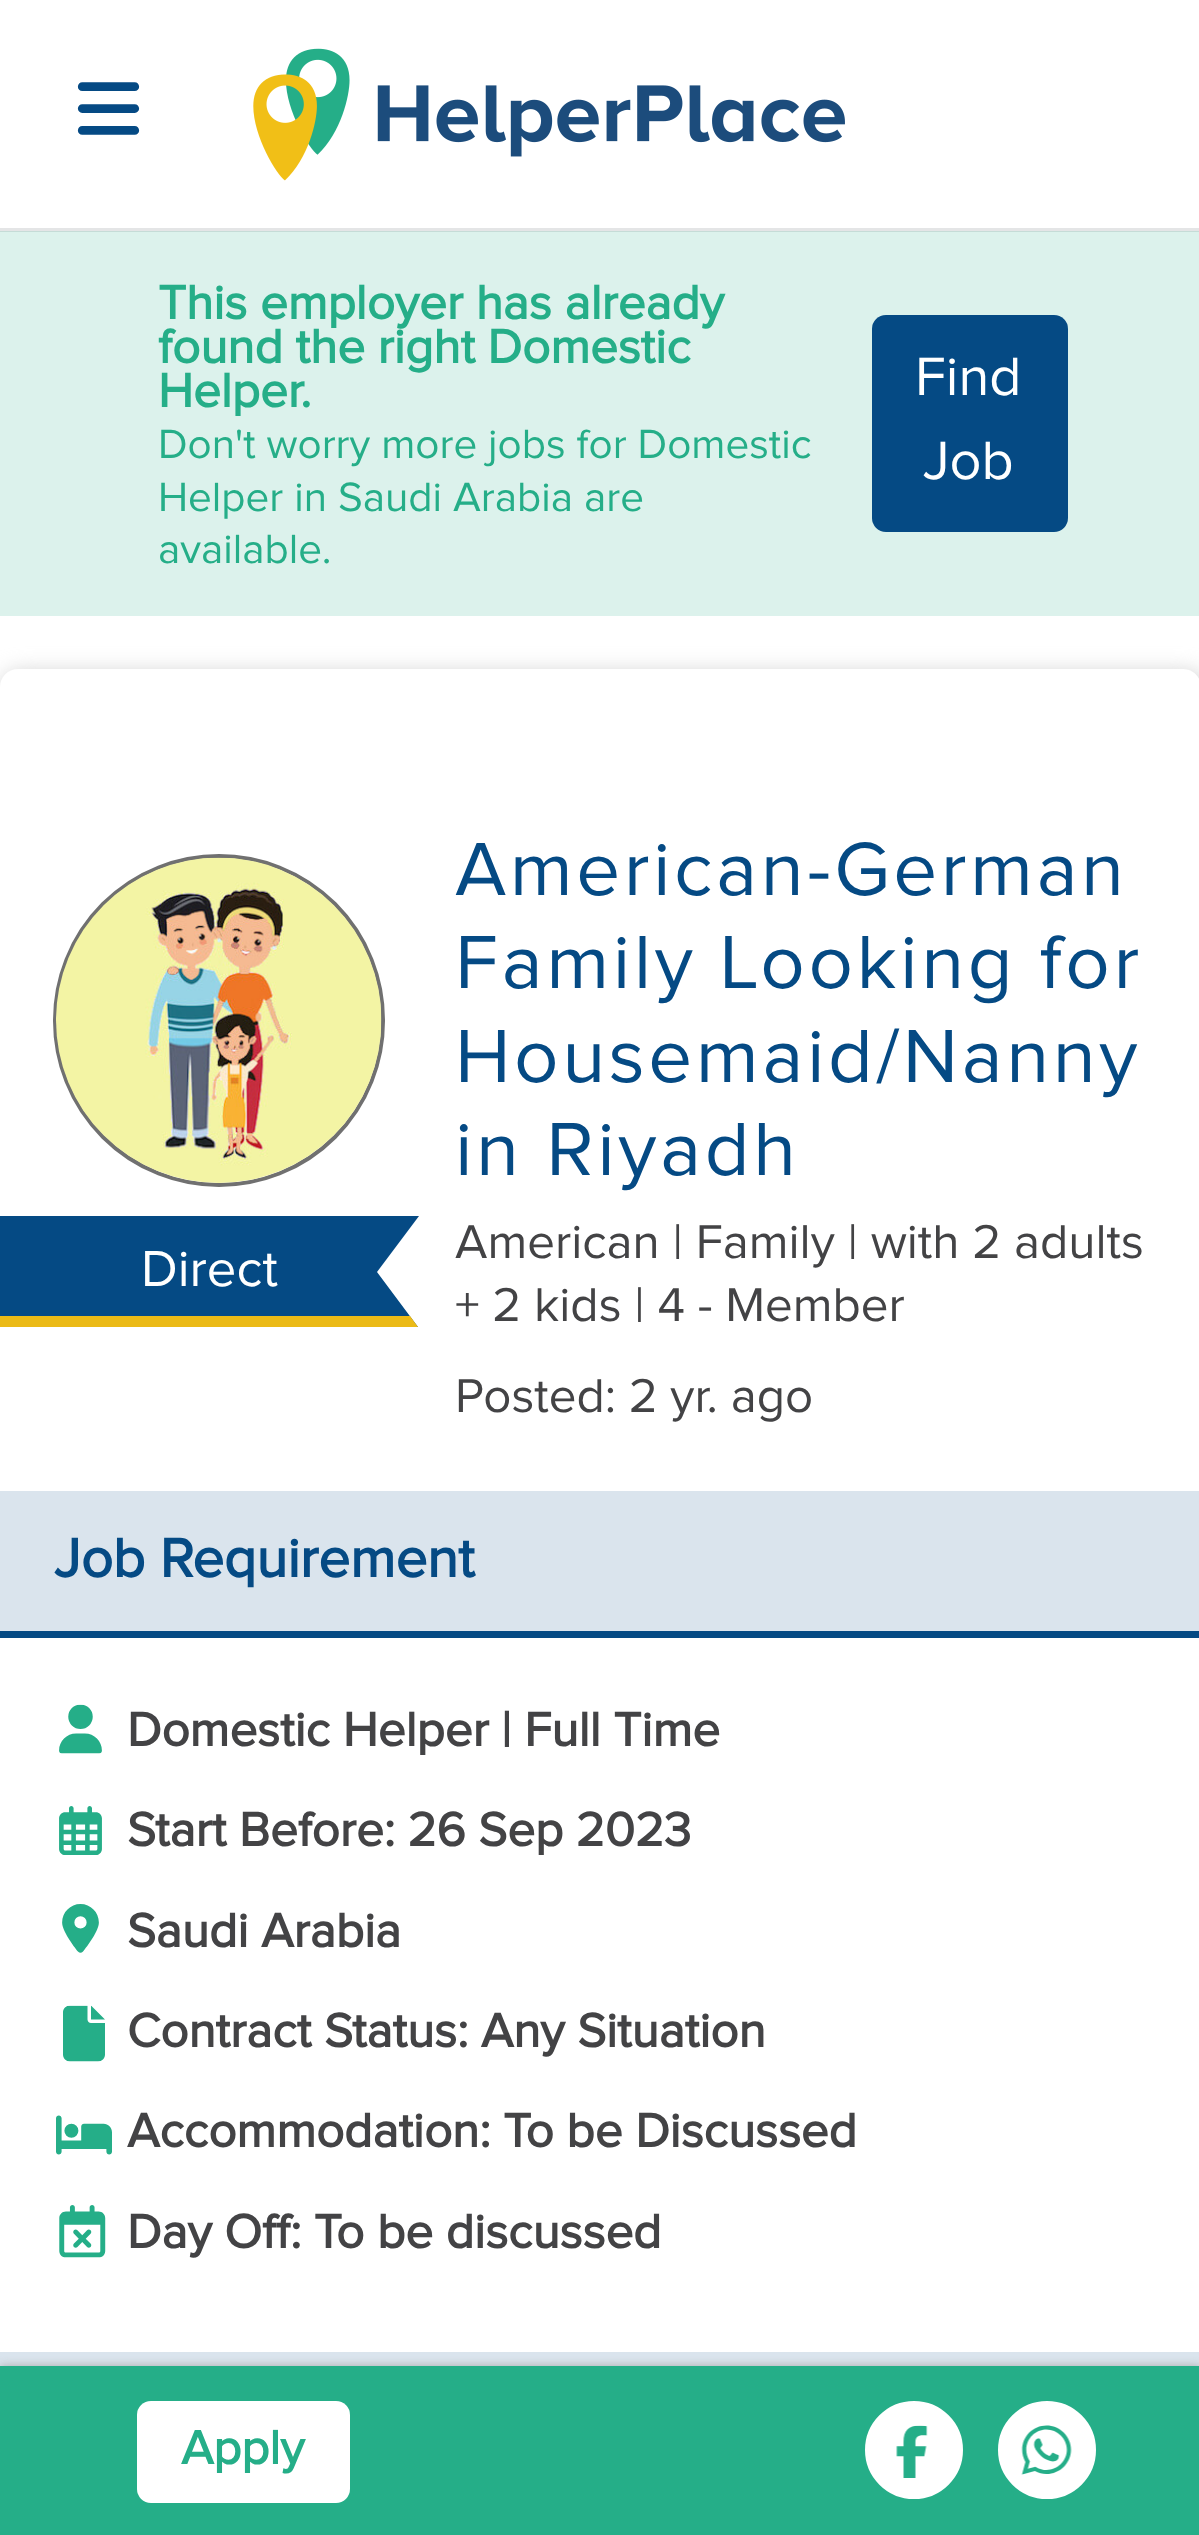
async function draw(canvas) {
  canvas.width = 1199;
  canvas.height = 2535;
  const ctx = canvas.getContext('2d');
  ctx.miterLimit = 4;
  ctx.fontKerning = 'normal';
  function label(s, x, y, font, color) {
    ctx.font = font;
    ctx.fillStyle = color;
    ctx.fillText(s, x, y);
  }
  function rect(x, y, w, h, color) {
    ctx.fillStyle = color;
    ctx.fillRect(x, y, w, h);
  }
  function roundedRect(x, y, w, h, r, color) {
    ctx.fillStyle = color;
    ctx.beginPath();
    ctx.roundRect(x, y, w, h, r);
    ctx.fill();
  }
  async function image(src, x, y, w, h) {
    const img = new Image();
    img.src = src;
    await img.decode();
    ctx.drawImage(img, x, y, w, h);
  }
  let path;

  rect(0, 0, 1199, 2535, '#fff');
  rect(0, 232, 1199, 384, '#dcf2ec');
  rect(0, 228, 1199, 3, '#e4e5e6');
  rect(0, 231, 1199, 1, '#c5dcd7');
  await image('assets/img1.png', 77, 82, 63, 53);
  await image('assets/img2.png', 253, 48, 592, 133);
  label('This employer has already', 158, 319, 'bold 49.25px Proxima Nova', '#25ae88');
  label('found the right Domestic', 158, 363, 'bold 49.25px Proxima Nova', '#25ae88');
  label('Helper.', 158, 407, 'bold 49.25px Proxima Nova', '#25ae88');
  label('Don\'t worry more jobs for Domestic', 158, 458, '42.25px Proxima Nova', '#25ae88');
  label('Helper in Saudi Arabia are', 158, 511, '42.25px Proxima Nova', '#25ae88');
  label('available.', 158, 563, '42.25px Proxima Nova', '#25ae88');
  roundedRect(872, 315, 196, 217, 14, '#054a84');
  label('Find', 915, 395, '56px Proxima Nova', '#fff');
  label('Job', 923, 479, '56px Proxima Nova', '#fff');
  ctx.save();
  path = new Path2D('M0 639H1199V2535H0ZM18 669H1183C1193 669 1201 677 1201 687V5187C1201 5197 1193 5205 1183 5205H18C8 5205 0 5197 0 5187V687C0 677 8 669 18 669Z');
  ctx.clip(path, 'evenodd');
  ctx.fillStyle = '#cfcfcf';
  ctx.filter = 'blur(10.5px)';
  ctx.beginPath();
  ctx.roundRect(0, 672, 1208, 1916, 21);
  ctx.fill();
  ctx.filter = 'none';
  ctx.restore();
  ctx.beginPath();
  ctx.roundRect(55, 856, 328, 329, 164);
  ctx.strokeStyle = '#707070';
  ctx.lineWidth = 4;
  ctx.stroke();
  await image('assets/img3.png', 56, 857, 326, 326);
  ctx.letterSpacing = '3.5px';
  label('American-German', 455, 895, '78px Proxima Nova', '#054a84');
  label('Family Looking for', 455, 988, '78px Proxima Nova', '#054a84');
  label('Housemaid/Nanny', 455, 1082, '78px Proxima Nova', '#054a84');
  label('in Riyadh', 455, 1175, '78px Proxima Nova', '#054a84');
  ctx.letterSpacing = '0px';
  label('American | Family | with 2 adults', 455, 1258, '49.25px Proxima Nova', '#434345');
  label('+ 2 kids | 4 - Member', 455, 1321, '49.25px Proxima Nova', '#434345');
  label('Posted: 2 yr. ago', 455, 1412, '49.25px Proxima Nova', '#434345');
  ctx.fillStyle = '#054a84';
  path = new Path2D('M419 1216H0V1327H418L377 1272Z');
  ctx.fill(path);
  ctx.fillStyle = '#ebba16';
  path = new Path2D('M0 1316V1327H418L410 1316Z');
  ctx.fill(path);
  label('Direct', 141, 1286, '52.5px Proxima Nova', '#fff');
  rect(0, 1491, 1199, 140, '#dae4ed');
  rect(0, 1631, 1199, 7, '#054a84');
  label('Job Requirement', 54, 1577, 'bold 56.25px Proxima Nova', '#054a84');
  await image('assets/img4.png', 59, 1704, 43, 50);
  label('Domestic Helper', 127, 1746, 'bold 49.25px Proxima Nova', '#434345');
  label('| Full Time', 501, 1746, 'bold 49.25px Proxima Nova', '#434345');
  await image('assets/img5.png', 59, 1806, 43, 49);
  label('Start Before: 26 Sep 2023', 127, 1846, 'bold 49.25px Proxima Nova', '#434345');
  await image('assets/img6.png', 62, 1904, 37, 49);
  label('Saudi Arabia', 127, 1947, 'bold 49.25px Proxima Nova', '#434345');
  await image('assets/img7.png', 63, 2005, 42, 57);
  label('Contract Status: Any Situation', 127, 2047, 'bold 49.25px Proxima Nova', '#434345');
  await image('assets/img8.png', 56, 2115, 56, 40);
  label('Accommodation: To be Discussed', 127, 2147, 'bold 49.25px Proxima Nova', '#434345');
  await image('assets/img9.png', 59, 2205, 47, 53);
  label('Day Off: To be discussed', 127, 2248, 'bold 49.25px Proxima Nova', '#434345');
  rect(0, 2352, 1199, 14, '#dae4ed');
  ctx.fillStyle = '#aaa';
  ctx.filter = 'blur(5px)';
  ctx.beginPath();
  ctx.rect(0, 2366, 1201, 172);
  ctx.fill();
  ctx.filter = 'none';
  rect(0, 2366, 1199, 169, '#25ae88');
  roundedRect(137, 2401, 213, 102, 14, '#fff');
  label('Apply', 181, 2464, 'bold 49px Proxima Nova', '#25ae88');
  ctx.fillStyle = '#fff';
  ctx.beginPath();
  ctx.arc(914, 2450, 47, 0, 2 * Math.PI);
  ctx.fill();
  ctx.strokeStyle = '#fff';
  ctx.stroke();
  await image('assets/img10.png', 896, 2425, 32, 53);
  ctx.beginPath();
  ctx.arc(1047, 2450, 47, 0, 2 * Math.PI);
  ctx.fill();
  ctx.stroke();
  await image('assets/img11.png', 1021, 2425, 51, 50);
}

draw(document.querySelector('canvas'));
